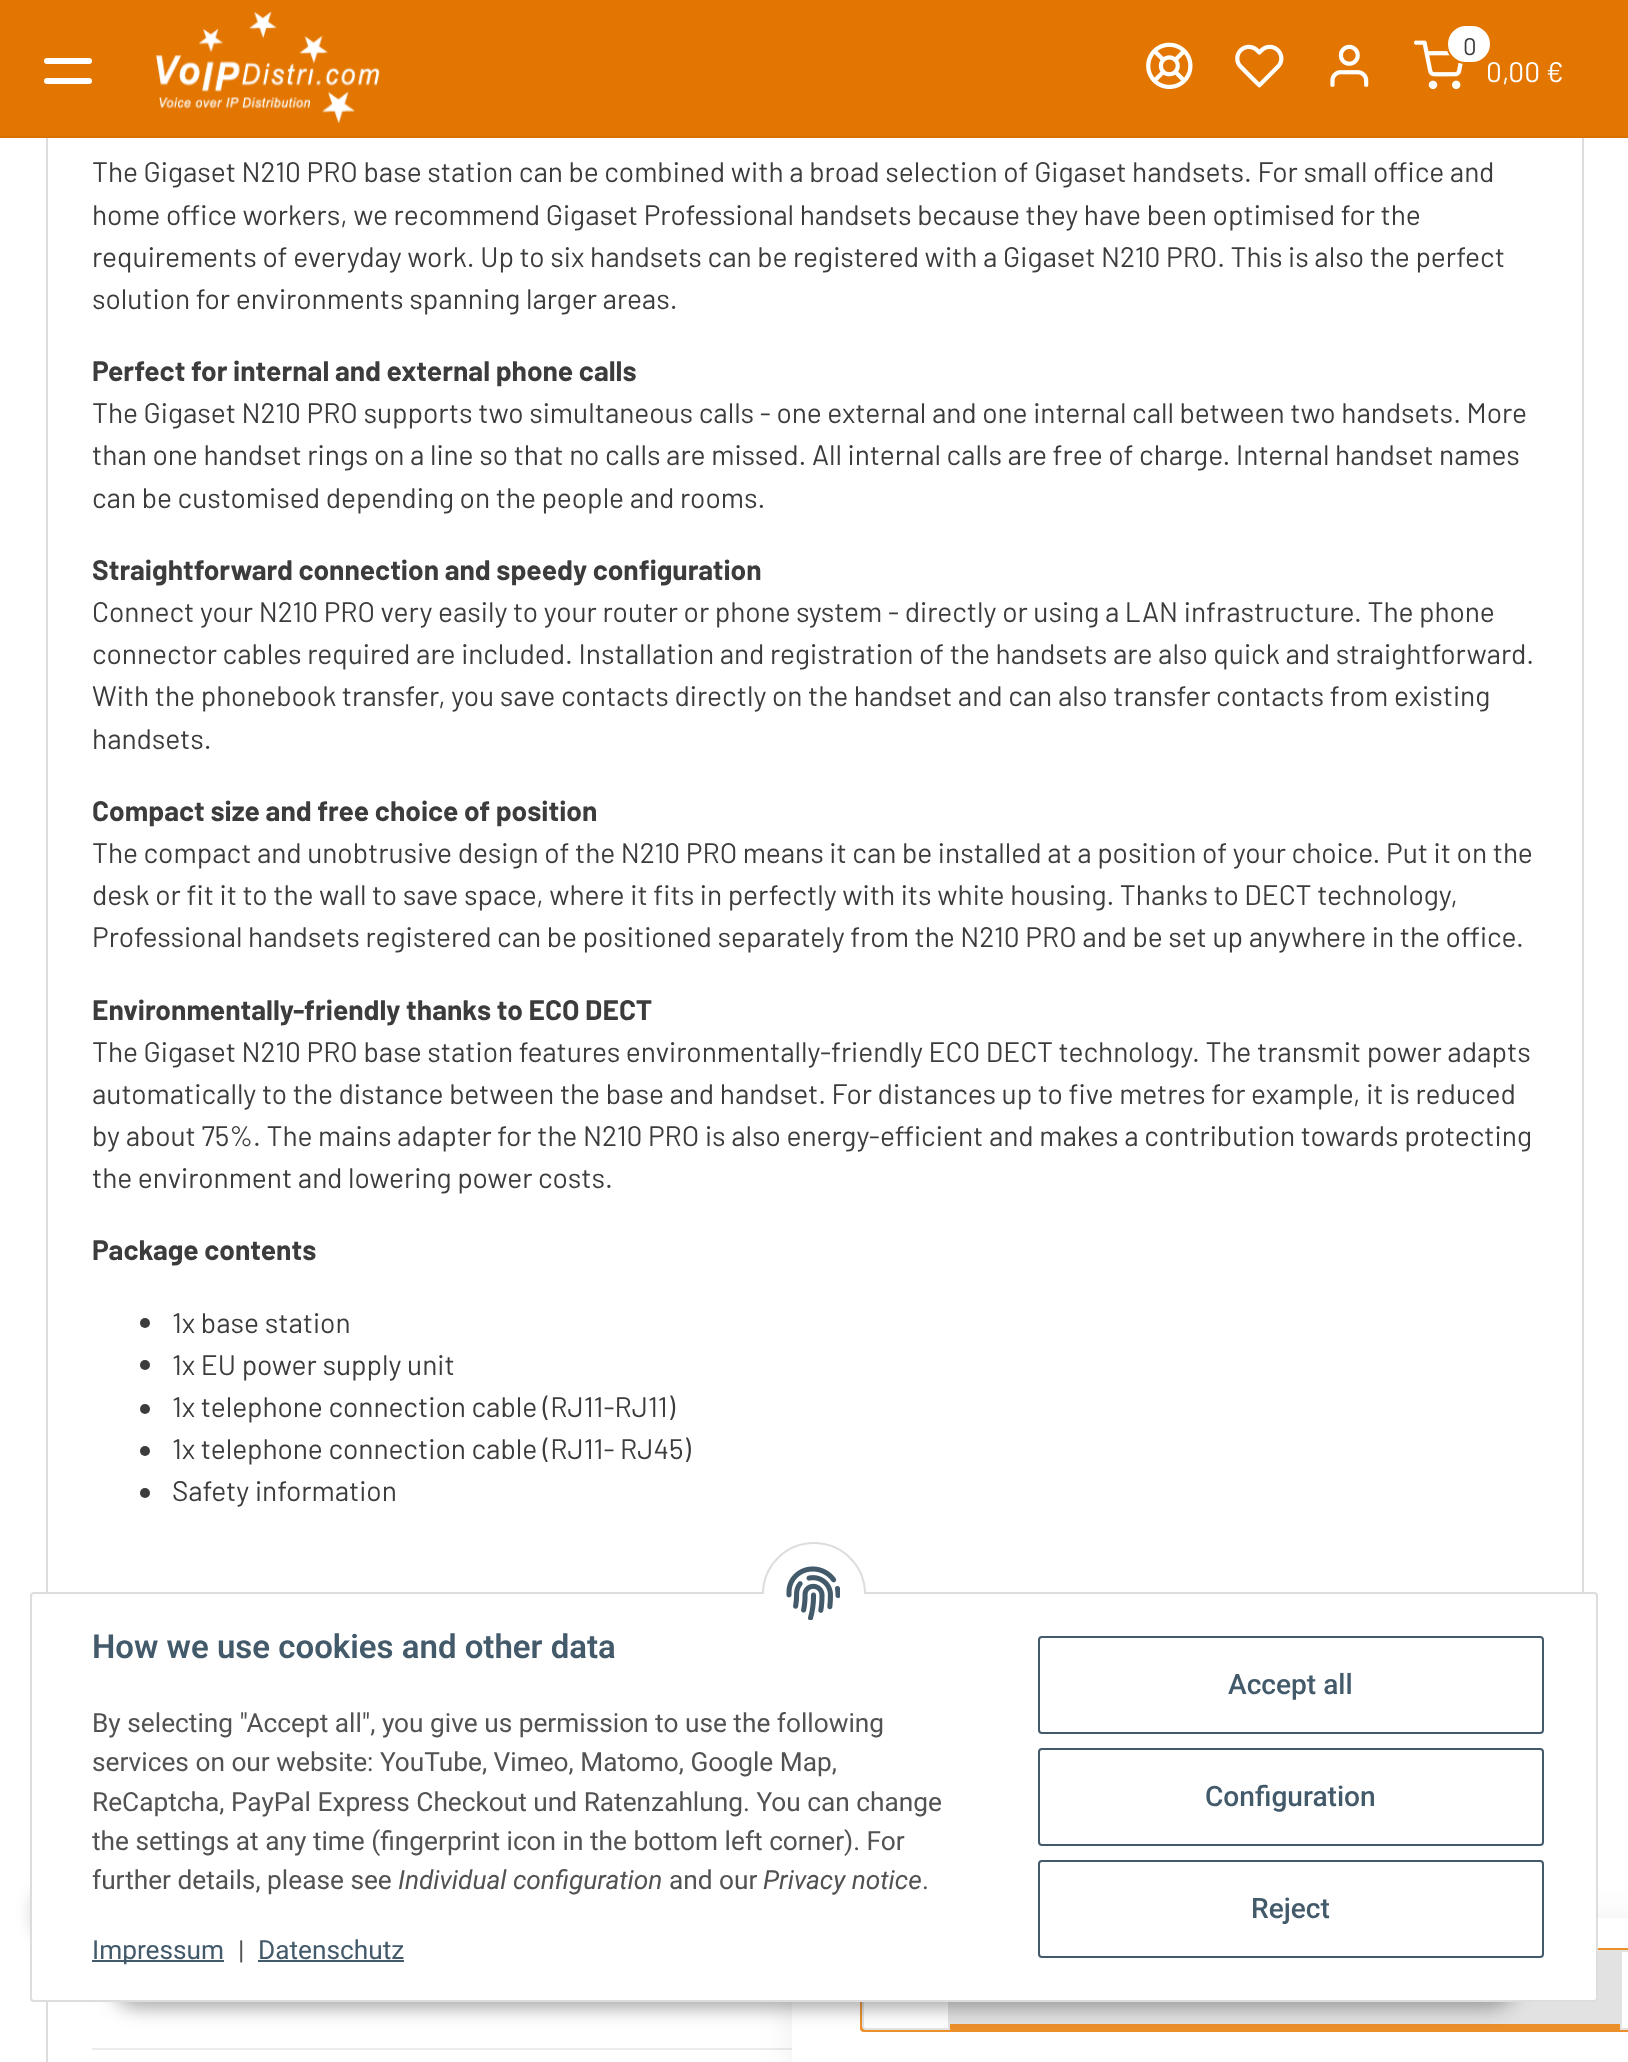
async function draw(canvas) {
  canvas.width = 1628;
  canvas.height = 2062;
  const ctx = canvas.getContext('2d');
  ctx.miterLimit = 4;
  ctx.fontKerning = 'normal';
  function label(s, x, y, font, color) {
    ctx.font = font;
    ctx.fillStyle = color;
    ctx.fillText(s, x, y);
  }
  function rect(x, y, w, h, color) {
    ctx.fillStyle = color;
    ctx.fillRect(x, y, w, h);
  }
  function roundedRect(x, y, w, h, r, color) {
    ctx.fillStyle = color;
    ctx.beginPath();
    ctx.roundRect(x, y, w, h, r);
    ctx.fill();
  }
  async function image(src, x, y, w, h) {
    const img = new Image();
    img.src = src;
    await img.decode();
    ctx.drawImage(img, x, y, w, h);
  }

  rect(0, 0, 1628, 2062, '#fff');
  ctx.strokeStyle = '#ddd';
  ctx.lineWidth = 2;
  ctx.strokeRect(47, -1, 1536, 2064);
  rect(0, 0, 1628, 136, '#e37600');
  rect(0, 136, 1628, 2, '#d97100');
  roundedRect(44, 58, 48, 6, 3, '#fff');
  roundedRect(44, 78, 48, 6, 3, '#fff');
  await image('assets/img1.png', 155, 11, 225, 113);
  await image('assets/img2.png', 1146, 42, 47, 47);
  await image('assets/img3.png', 1235, 44, 49, 44);
  await image('assets/img4.png', 1330, 44, 39, 43);
  await image('assets/img5.png', 1414, 40, 49, 49);
  ctx.beginPath();
  ctx.roundRect(1447, 25, 44, 38, 19);
  ctx.fill();
  ctx.strokeStyle = '#e37600';
  ctx.stroke();
  label('0', 1463, 55, '24px Barlow', '#3b3c3b');
  label('0,00 €', 1486, 82, '28.12px Barlow', '#fff');
  label('The Gigaset N210 PRO base station can be combined with a broad selection of Gigaset handsets. For small office and', 92, 182, '28.12px Barlow', '#3b3c3b');
  label('home office workers, we recommend Gigaset Professional handsets because they have been optimised for the', 92, 225, '28.12px Barlow', '#3b3c3b');
  label('requirements of everyday work. Up to six handsets can be registered with a Gigaset N210 PRO. This is also the perfect', 92, 267, '28.12px Barlow', '#3b3c3b');
  label('solution for environments spanning larger areas.', 92, 309, '28.12px Barlow', '#3b3c3b');
  label('Perfect for internal and external phone calls', 92, 381, 'bold 28.12px Barlow', '#3b3c3b');
  label('The Gigaset N210 PRO supports two simultaneous calls - one external and one internal call between two handsets. More', 92, 423, '28.12px Barlow', '#3b3c3b');
  label('than one handset rings on a line so that no calls are missed. All internal calls are free of charge. Internal handset names', 92, 465, '28.12px Barlow', '#3b3c3b');
  label('can be customised depending on the people and rooms.', 92, 508, '28.12px Barlow', '#3b3c3b');
  label('Straightforward connection and speedy configuration', 92, 580, 'bold 28.12px Barlow', '#3b3c3b');
  label('Connect your N210 PRO very easily to your router or phone system - directly or using a LAN infrastructure. The phone', 92, 622, '28.12px Barlow', '#3b3c3b');
  label('connector cables required are included. Installation and registration of the handsets are also quick and straightforward.', 92, 664, '28.12px Barlow', '#3b3c3b');
  label('With the phonebook transfer, you save contacts directly on the handset and can also transfer contacts from existing', 92, 706, '28.12px Barlow', '#3b3c3b');
  label('handsets.', 92, 749, '28.12px Barlow', '#3b3c3b');
  label('Compact size and free choice of position', 92, 821, 'bold 28.12px Barlow', '#3b3c3b');
  label('The compact and unobtrusive design of the N210 PRO means it can be installed at a position of your choice. Put it on the', 92, 863, '28.12px Barlow', '#3b3c3b');
  label('desk or fit it to the wall to save space, where it fits in perfectly with its white housing. Thanks to DECT technology,', 92, 905, '28.12px Barlow', '#3b3c3b');
  label('Professional handsets registered can be positioned separately from the N210 PRO and be set up anywhere in the office.', 92, 947, '28.12px Barlow', '#3b3c3b');
  label('Environmentally-friendly thanks to ECO DECT', 92, 1020, 'bold 28.12px Barlow', '#3b3c3b');
  label('The Gigaset N210 PRO base station features environmentally-friendly ECO DECT technology. The transmit power adapts', 92, 1062, '28.12px Barlow', '#3b3c3b');
  label('automatically to the distance between the base and handset. For distances up to five metres for example, it is reduced', 92, 1104, '28.12px Barlow', '#3b3c3b');
  label('by about 75%. The mains adapter for the N210 PRO is also energy-efficient and makes a contribution towards protecting', 92, 1146, '28.12px Barlow', '#3b3c3b');
  label('the environment and lowering power costs.', 92, 1188, '28.12px Barlow', '#3b3c3b');
  label('Package contents', 92, 1260, 'bold 28.12px Barlow', '#3b3c3b');
  ctx.beginPath();
  ctx.arc(145, 1323, 5, 0, 2 * Math.PI);
  ctx.fill();
  label('1x base station', 172, 1333, '28.12px Barlow', '#3b3c3b');
  ctx.beginPath();
  ctx.arc(145, 1365, 5, 0, 2 * Math.PI);
  ctx.fill();
  label('1x EU power supply unit', 172, 1375, '28.12px Barlow', '#3b3c3b');
  ctx.beginPath();
  ctx.arc(145, 1409, 5, 0, 2 * Math.PI);
  ctx.fill();
  label('1x telephone connection cable (RJ11-RJ11)', 172, 1417, '28.12px Barlow', '#3b3c3b');
  ctx.beginPath();
  ctx.arc(145, 1451, 5, 0, 2 * Math.PI);
  ctx.fill();
  label('1x telephone connection cable (RJ11- RJ45)', 172, 1459, '28.12px Barlow', '#3b3c3b');
  ctx.beginPath();
  ctx.arc(145, 1493, 5, 0, 2 * Math.PI);
  ctx.fill();
  label('Safety information', 172, 1501, '28.12px Barlow', '#3b3c3b');
  rect(92, 2048, 700, 2, '#ebeceb');
  ctx.fillStyle = '#3b3c3b14';
  ctx.filter = 'blur(15px)';
  ctx.beginPath();
  ctx.rect(788, 1918, 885, 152);
  ctx.fill();
  ctx.filter = 'none';
  rect(792, 1918, 836, 144, '#fff');
  ctx.fillStyle = '#eb8f2b';
  ctx.beginPath();
  ctx.roundRect(861, 1949, 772, 82, 3);
  ctx.fill();
  ctx.strokeStyle = '#eb8f2b';
  ctx.stroke();
  ctx.fillStyle = '#fff';
  ctx.beginPath();
  ctx.roundRect(863, 1951, 86, 78, [3, 0, 0, 3]);
  ctx.fill();
  ctx.strokeStyle = '#e2e2e2';
  ctx.stroke();
  rect(950, 1950, 670, 74, '#e2e2e2');
  ctx.fillStyle = '#fff';
  ctx.beginPath();
  ctx.rect(1621, 1951, 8, 78);
  ctx.fill();
  ctx.stroke();
  ctx.fillStyle = '#3b3c3b33';
  ctx.filter = 'blur(7.5px)';
  ctx.beginPath();
  ctx.roundRect(30, 1876, 76, 74, 37);
  ctx.fill();
  ctx.filter = 'none';
  ctx.fillStyle = '#3b3c3b73';
  ctx.filter = 'blur(9.5px)';
  ctx.beginPath();
  ctx.roundRect(110, 1948, 1408, 60, 30);
  ctx.fill();
  ctx.filter = 'none';
  ctx.fillStyle = '#fff';
  ctx.beginPath();
  ctx.roundRect(31, 1593, 1566, 408, 3);
  ctx.fill();
  ctx.strokeStyle = '#ddd';
  ctx.stroke();
  ctx.beginPath();
  ctx.arc(814, 1594, 51, 0, 2 * Math.PI);
  ctx.fill();
  ctx.stroke();
  rect(762, 1594, 104, 52, '#fff');
  await image('assets/img6.png', 786, 1566, 54, 54);
  label('How we use cookies and other data', 92, 1658, '600 33px Roboto', '#435a6b');
  label('By selecting "Accept all", you give us permission to use the following', 92, 1732, '26.25px Roboto', '#525252');
  label('services on our website: YouTube, Vimeo, Matomo, Google Map,', 92, 1771, '26.25px Roboto', '#525252');
  label('ReCaptcha, PayPal Express Checkout und Ratenzahlung. You can change', 92, 1811, '26.25px Roboto', '#525252');
  label('the settings at any time (fingerprint icon in the bottom left corner). For', 92, 1850, '26.25px Roboto', '#525252');
  label('further details, please see', 92, 1889, '26.25px Roboto', '#525252');
  label('Individual configuration', 398, 1889, 'italic 26.25px Roboto', '#525252');
  label('and our', 669, 1889, '26.25px Roboto', '#525252');
  label('Privacy notice', 763, 1889, 'italic 26.25px Roboto', '#525252');
  label('.', 922, 1889, '26.25px Roboto', '#525252');
  rect(92, 1960, 132, 2, '#435a6b');
  label('Impressum', 92, 1959, '26.25px Roboto', '#435a6b');
  label('|', 238, 1959, '26.25px Roboto', '#525252');
  label('Datenschutz', 258, 1959, '26.25px Roboto', '#435a6b');
  rect(258, 1960, 146, 2, '#435a6b');
  ctx.beginPath();
  ctx.roundRect(1039, 1637, 504, 96, 3);
  ctx.strokeStyle = '#435a6b';
  ctx.stroke();
  label('Accept all', 1228, 1694, '500 28.12px Roboto', '#435a6b');
  ctx.beginPath();
  ctx.roundRect(1039, 1749, 504, 96, 3);
  ctx.stroke();
  label('Configuration', 1205, 1806, '500 28.12px Roboto', '#435a6b');
  ctx.beginPath();
  ctx.roundRect(1039, 1861, 504, 96, 3);
  ctx.stroke();
  label('Reject', 1251, 1918, '500 28.12px Roboto', '#435a6b');
}

draw(document.querySelector('canvas'));
